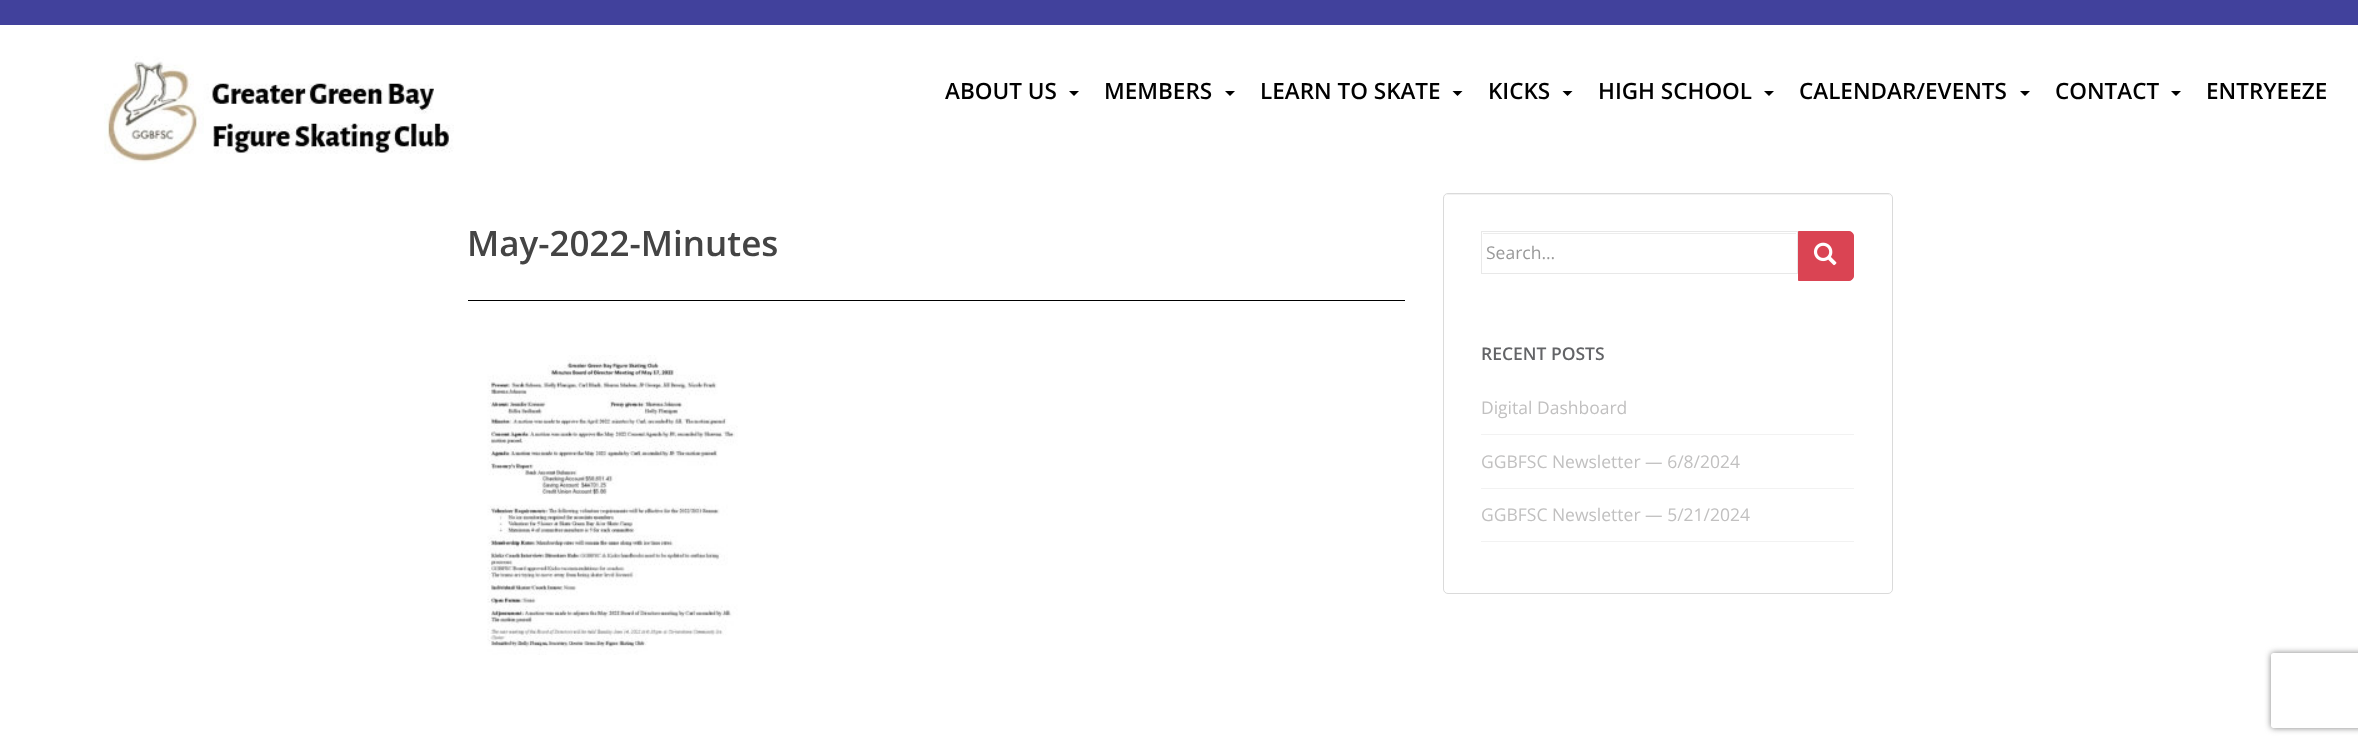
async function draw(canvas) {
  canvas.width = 2358;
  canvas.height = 745;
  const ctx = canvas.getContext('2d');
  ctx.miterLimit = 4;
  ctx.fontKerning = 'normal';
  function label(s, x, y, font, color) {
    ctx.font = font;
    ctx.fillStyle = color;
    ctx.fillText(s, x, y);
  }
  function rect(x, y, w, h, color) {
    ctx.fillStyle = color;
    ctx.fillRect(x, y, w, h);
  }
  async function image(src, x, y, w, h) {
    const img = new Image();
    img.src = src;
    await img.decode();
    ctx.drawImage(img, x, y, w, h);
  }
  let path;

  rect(0, 0, 2358, 745, '#fff');
  rect(0, 0, 2358, 25, '#41419c');
  await image('assets/img1.png', 104, 56, 350, 108);
  label('ABOUT US', 945, 99, '600 22.5px Open Sans', '#000');
  path = new Path2D('M1069 91H1079L1074 96Z');
  ctx.fill(path);
  label('MEMBERS', 1104, 99, '600 22.5px Open Sans', '#000');
  path = new Path2D('M1225 91H1235L1230 96Z');
  ctx.fill(path);
  label('LEARN TO SKATE', 1260, 99, '600 22.5px Open Sans', '#000');
  path = new Path2D('M1452.5 91H1462.5L1457.5 96Z');
  ctx.fill(path);
  label('KICKS', 1488, 99, '600 22.5px Open Sans', '#000');
  path = new Path2D('M1562.5 91H1572.5L1567.5 96Z');
  ctx.fill(path);
  label('HIGH SCHOOL', 1598, 99, '600 22.5px Open Sans', '#000');
  path = new Path2D('M1764 91H1774L1769 96Z');
  ctx.fill(path);
  label('CALENDAR/EVENTS', 1799, 99, '600 22.5px Open Sans', '#000');
  path = new Path2D('M2020 91H2030L2025 96Z');
  ctx.fill(path);
  label('CONTACT', 2055, 99, '600 22.5px Open Sans', '#000');
  path = new Path2D('M2171 91H2181L2176 96Z');
  ctx.fill(path);
  label('ENTRYEEZE', 2206, 99, '600 22.5px Open Sans', '#000');
  rect(468, 300, 937, 1, '#000');
  label('May-2022-Minutes', 467, 256, '600 35px Open Sans', '#444');
  await image('assets/img2.png', 487, 355, 251, 300);
  ctx.fillStyle = '#f2f2f2';
  path = new Path2D('M1448 195H1888C1890 195 1891 197 1891 199C1891 196 1890 194 1887 194H1448L1446 195L1445 196L1444 199C1444 197 1445 195 1448 195Z');
  ctx.fill(path);
  ctx.beginPath();
  ctx.roundRect(1443.5, 193.5, 449, 400, 4.5);
  ctx.strokeStyle = '#dadada';
  ctx.stroke();
  rect(1483, 233, 313, 1, '#ececec');
  ctx.strokeStyle = '#e8e8e8';
  ctx.strokeRect(1481.5, 231.5, 316, 42);
  label('Search…', 1486, 259, '17.5px Open Sans', '#999');
  ctx.fillStyle = '#da4453';
  ctx.beginPath();
  ctx.roundRect(1798.5, 231.5, 55, 49, [0, 4.5, 4.5, 0]);
  ctx.fill();
  ctx.strokeStyle = '#da4453';
  ctx.stroke();
  await image('assets/img3.png', 1813, 242, 24, 24);
  label('RECENT POSTS', 1481, 360, '600 17.5px Open Sans', '#636467');
  rect(1481, 434, 373, 1, '#f2f2f2');
  label('Digital Dashboard', 1481, 414, '17.5px Open Sans', '#c1c0c0');
  rect(1481, 488, 373, 1, '#f2f2f2');
  label('GGBFSC Newsletter — 6/8/2024', 1481, 468, '17.5px Open Sans', '#c1c0c0');
  rect(1481, 541, 373, 1, '#f2f2f2');
  label('GGBFSC Newsletter — 5/21/2024', 1481, 521, '17.5px Open Sans', '#c1c0c0');
  ctx.save();
  path = new Path2D('M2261 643H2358V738H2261ZM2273.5 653H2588.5C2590 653 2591 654 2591 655.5V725.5C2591 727 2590 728 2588.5 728H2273.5C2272 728 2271 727 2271 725.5V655.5C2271 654 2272 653 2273.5 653Z');
  ctx.clip(path, 'evenodd');
  ctx.fillStyle = '#808080';
  ctx.filter = 'blur(3px)';
  ctx.beginPath();
  ctx.roundRect(2271, 653, 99, 75, 2.5);
  ctx.fill();
  ctx.filter = 'none';
  ctx.restore();
}

draw(document.querySelector('canvas'));
